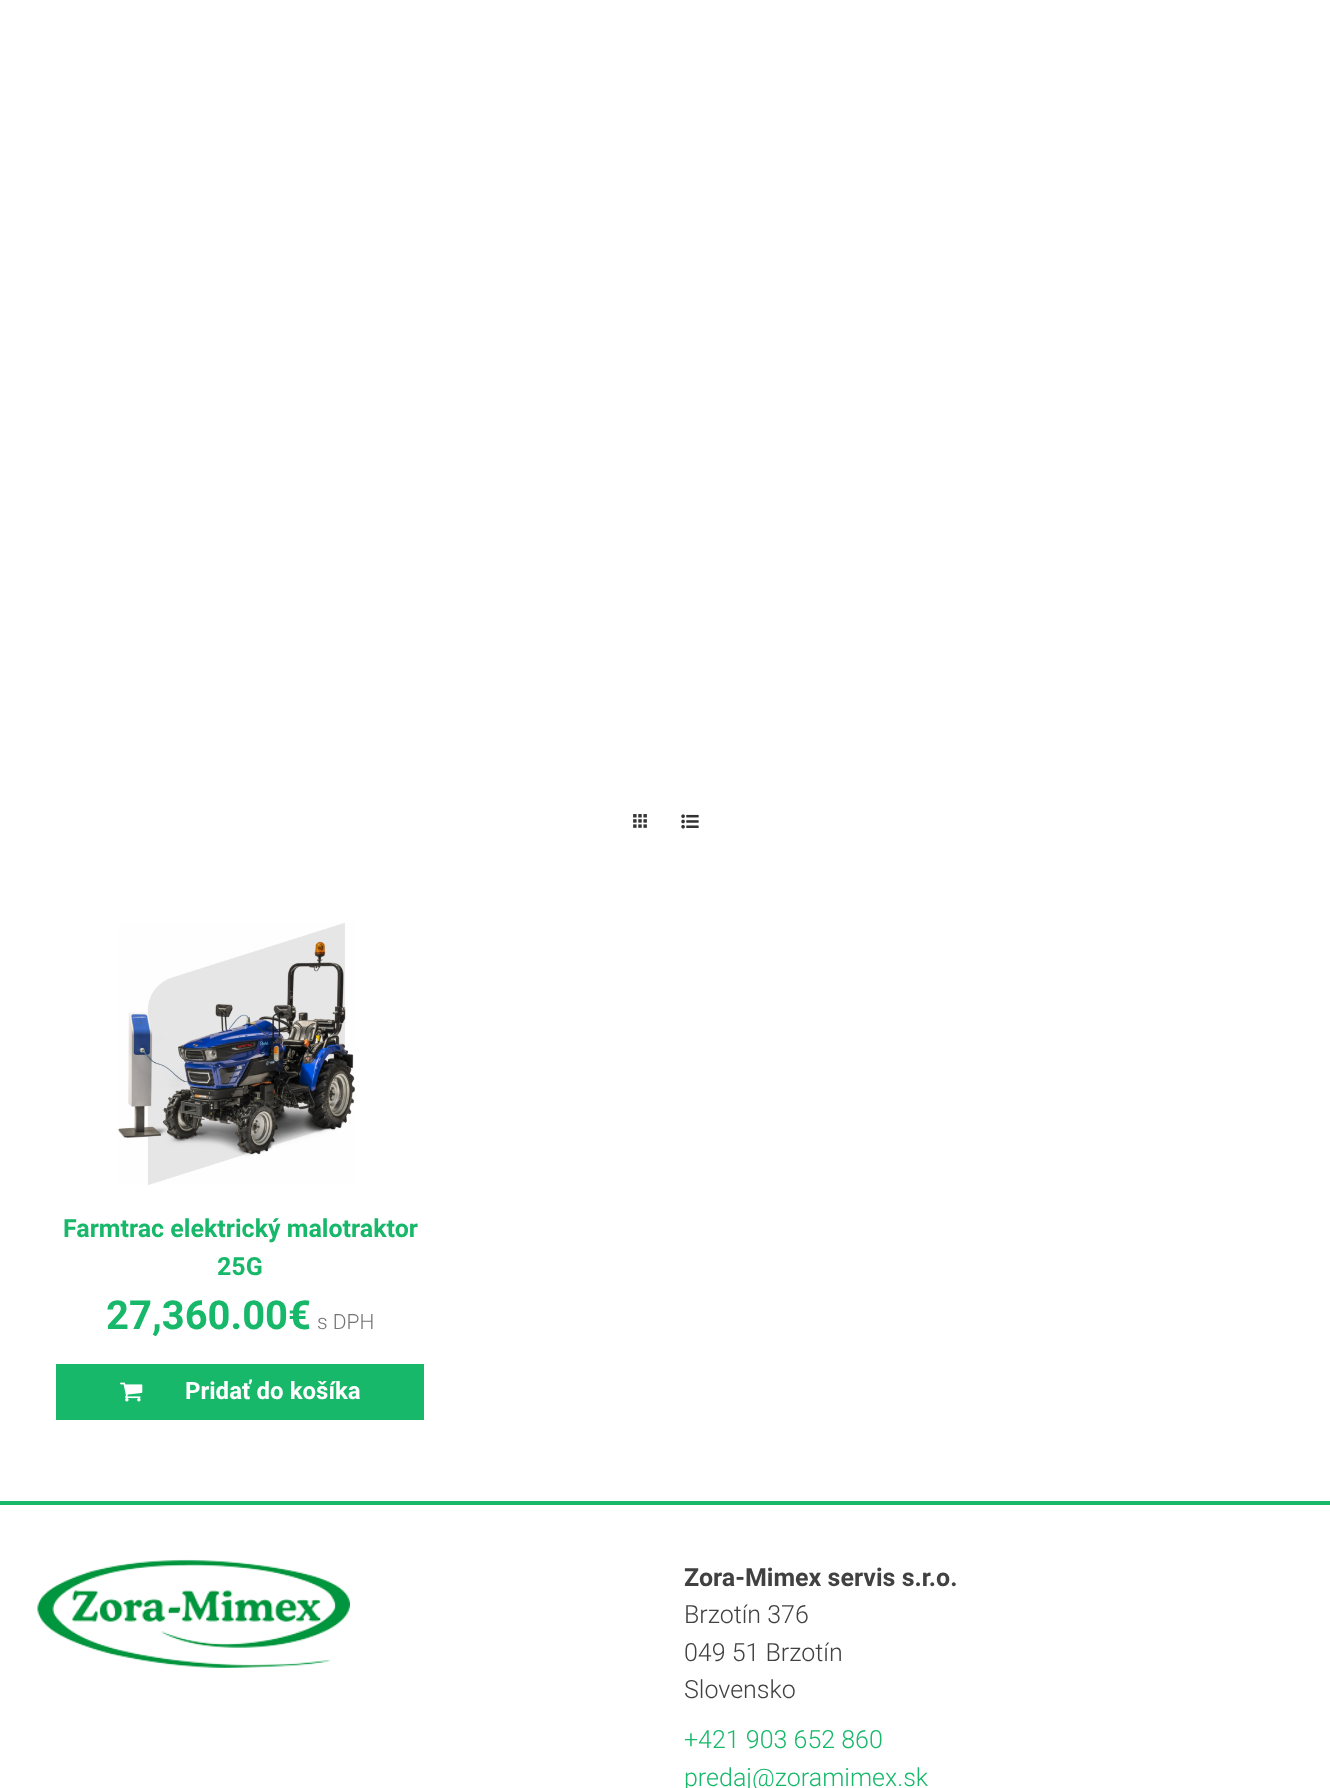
async function draw(canvas) {
  canvas.width = 1330;
  canvas.height = 1788;
  const ctx = canvas.getContext('2d');
  ctx.miterLimit = 4;
  ctx.fontKerning = 'normal';
  function label(s, x, y, font, color) {
    ctx.font = font;
    ctx.fillStyle = color;
    ctx.fillText(s, x, y);
  }
  function rect(x, y, w, h, color) {
    ctx.fillStyle = color;
    ctx.fillRect(x, y, w, h);
  }
  async function image(src, x, y, w, h) {
    const img = new Image();
    img.src = src;
    await img.decode();
    ctx.drawImage(img, x, y, w, h);
  }

  rect(0, 0, 1330, 1788, '#fff');
  await image('assets/img1.png', 633, 814, 14, 14);
  await image('assets/img2.png', 681, 814, 18, 15);
  await image('assets/img3.png', 118, 922, 237, 263);
  label('Farmtrac elektrický malotraktor', 63, 1237, 'bold 25px Roboto', '#18b86a');
  label('25G', 217, 1275, 'bold 25px Roboto', '#18b86a');
  label('27,360.00€', 106, 1329, 'bold 40px Roboto', '#18b86a');
  label('s DPH', 317, 1329, '300 21px Roboto', '#747474');
  rect(56, 1364, 368, 56, '#18b86a');
  await image('assets/img4.png', 120, 1382, 23, 20);
  label('Pridať do košíka', 185, 1399, 'bold 24px Roboto', '#fff');
  rect(0, 1501, 1330, 4, '#18b869');
  await image('assets/img5.png', 37, 1559, 313, 109);
  label('Zora-Mimex servis s.r.o.', 684, 1586, 'bold 25px Roboto', '#414141');
  label('Brzotín 376', 684, 1623, '300 25px Roboto', '#414141');
  label('049 51 Brzotín', 684, 1661, '300 25px Roboto', '#414141');
  label('Slovensko', 684, 1698, '300 25px Roboto', '#414141');
  label('+421 903 652 860', 684, 1748, '300 25px Roboto', '#18b86a');
  label('predaj@zoramimex.sk', 684, 1786, '300 25px Roboto', '#18b86a');
}

draw(document.querySelector('canvas'));
